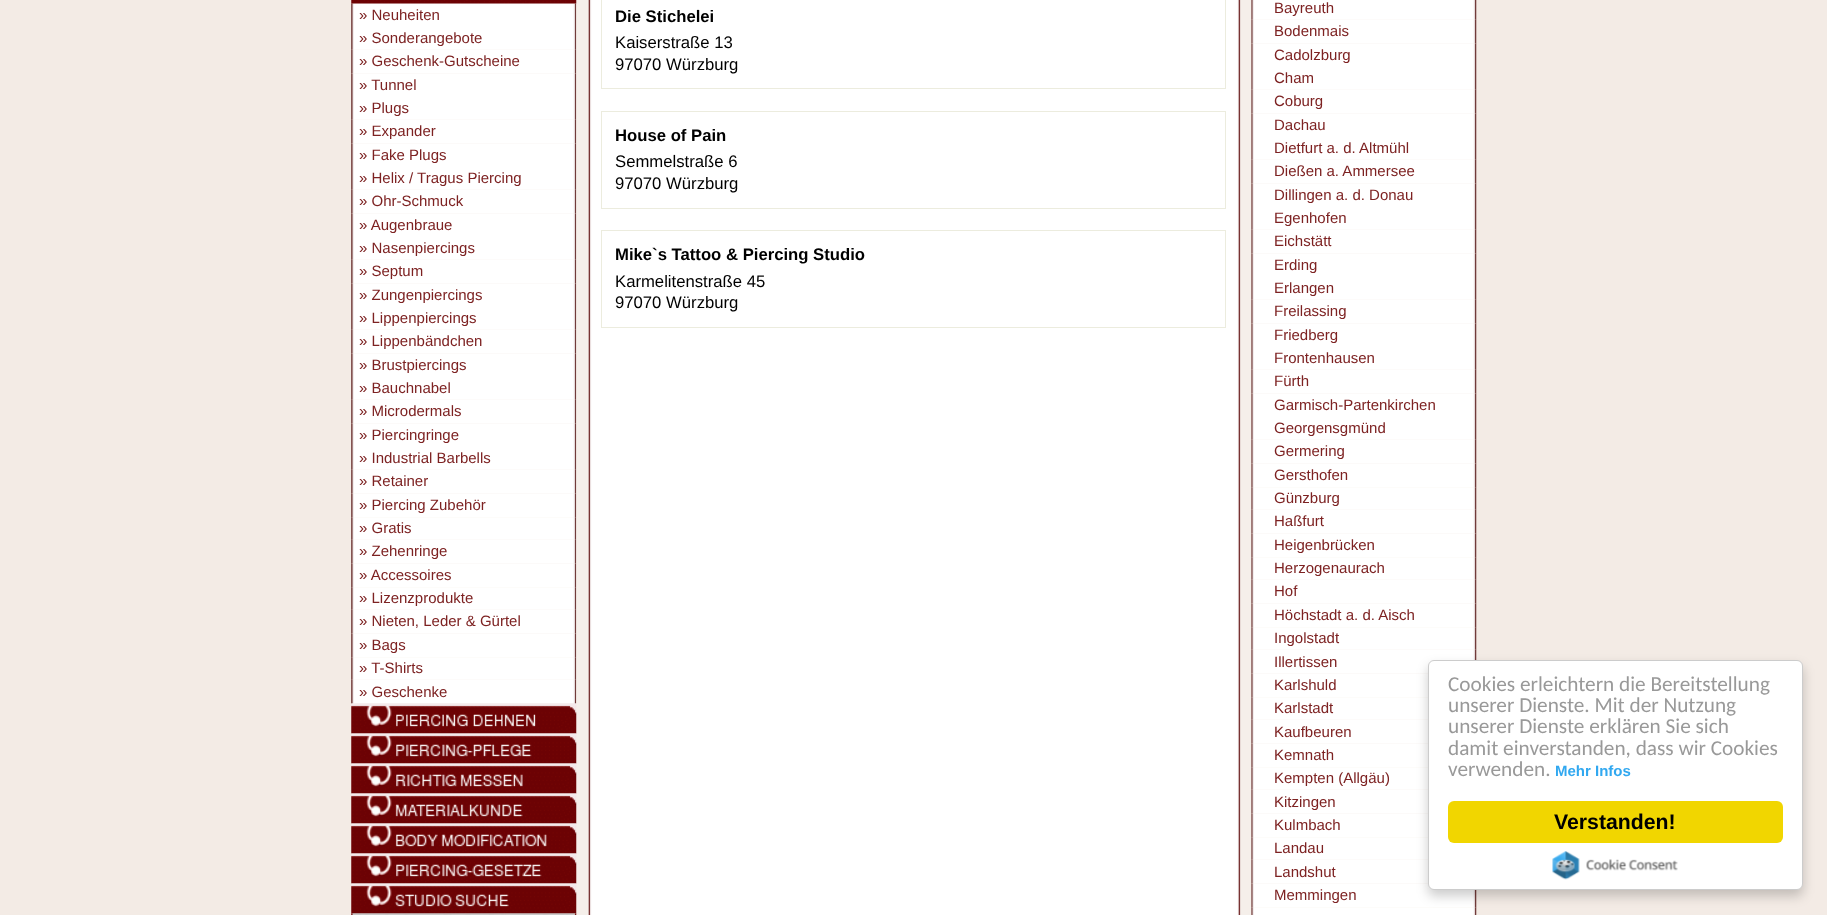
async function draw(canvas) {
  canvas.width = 1827;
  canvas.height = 915;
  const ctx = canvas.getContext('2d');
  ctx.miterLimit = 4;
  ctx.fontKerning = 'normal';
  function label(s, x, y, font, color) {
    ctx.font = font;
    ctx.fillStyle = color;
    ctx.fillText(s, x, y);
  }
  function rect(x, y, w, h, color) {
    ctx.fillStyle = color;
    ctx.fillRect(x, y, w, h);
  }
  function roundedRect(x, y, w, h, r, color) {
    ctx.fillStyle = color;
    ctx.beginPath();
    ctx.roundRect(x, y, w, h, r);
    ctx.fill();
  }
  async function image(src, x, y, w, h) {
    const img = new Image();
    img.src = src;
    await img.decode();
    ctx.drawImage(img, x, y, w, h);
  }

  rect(0, 0, 1827, 915, '#f3ebe5');
  await image('assets/img2.png', 351, 3, 226, 23);
  await image('assets/img3.png', 351, 26, 226, 24);
  await image('assets/img4.png', 351, 49, 226, 25);
  await image('assets/img5.png', 351, 73, 226, 23);
  await image('assets/img3.png', 351, 96, 226, 24);
  await image('assets/img4.png', 351, 119, 226, 25);
  await image('assets/img5.png', 351, 143, 226, 23);
  await image('assets/img3.png', 351, 166, 226, 24);
  await image('assets/img4.png', 351, 189, 226, 25);
  await image('assets/img5.png', 351, 213, 226, 23);
  await image('assets/img3.png', 351, 236, 226, 24);
  await image('assets/img4.png', 351, 259, 226, 25);
  await image('assets/img5.png', 351, 283, 226, 23);
  await image('assets/img3.png', 351, 306, 226, 24);
  await image('assets/img4.png', 351, 329, 226, 25);
  await image('assets/img5.png', 351, 353, 226, 23);
  await image('assets/img3.png', 351, 376, 226, 24);
  await image('assets/img4.png', 351, 399, 226, 25);
  await image('assets/img5.png', 351, 423, 226, 23);
  await image('assets/img3.png', 351, 446, 226, 24);
  await image('assets/img4.png', 351, 469, 226, 25);
  await image('assets/img6.png', 351, 493, 226, 25);
  await image('assets/img7.png', 351, 517, 226, 23);
  await image('assets/img4.png', 351, 539, 226, 25);
  await image('assets/img6.png', 351, 563, 226, 25);
  await image('assets/img7.png', 351, 587, 226, 23);
  await image('assets/img4.png', 351, 609, 226, 25);
  await image('assets/img6.png', 351, 633, 226, 25);
  await image('assets/img7.png', 351, 657, 226, 23);
  await image('assets/img4.png', 351, 679, 226, 25);
  await image('assets/img16.png', 1251, 0, 226, 20);
  await image('assets/img4.png', 1251, 19, 226, 25);
  await image('assets/img5.png', 1251, 43, 226, 23);
  await image('assets/img3.png', 1251, 66, 226, 24);
  await image('assets/img4.png', 1251, 89, 226, 25);
  await image('assets/img5.png', 1251, 113, 226, 23);
  await image('assets/img3.png', 1251, 136, 226, 24);
  await image('assets/img4.png', 1251, 159, 226, 25);
  await image('assets/img5.png', 1251, 183, 226, 23);
  await image('assets/img3.png', 1251, 206, 226, 24);
  await image('assets/img4.png', 1251, 229, 226, 25);
  await image('assets/img5.png', 1251, 253, 226, 23);
  await image('assets/img3.png', 1251, 276, 226, 24);
  await image('assets/img4.png', 1251, 299, 226, 25);
  await image('assets/img5.png', 1251, 323, 226, 23);
  await image('assets/img3.png', 1251, 346, 226, 24);
  await image('assets/img4.png', 1251, 369, 226, 25);
  await image('assets/img5.png', 1251, 393, 226, 23);
  await image('assets/img3.png', 1251, 416, 226, 24);
  await image('assets/img4.png', 1251, 439, 226, 25);
  await image('assets/img6.png', 1251, 463, 226, 25);
  await image('assets/img7.png', 1251, 487, 226, 23);
  await image('assets/img4.png', 1251, 509, 226, 25);
  await image('assets/img6.png', 1251, 533, 226, 25);
  await image('assets/img7.png', 1251, 557, 226, 23);
  await image('assets/img4.png', 1251, 579, 226, 25);
  await image('assets/img6.png', 1251, 603, 226, 25);
  await image('assets/img7.png', 1251, 627, 226, 23);
  await image('assets/img4.png', 1251, 649, 226, 25);
  await image('assets/img17.png', 1251, 673, 177, 25);
  await image('assets/img18.png', 1251, 697, 177, 23);
  await image('assets/img19.png', 1251, 719, 177, 25);
  await image('assets/img17.png', 1251, 743, 177, 25);
  await image('assets/img18.png', 1251, 767, 177, 23);
  await image('assets/img19.png', 1251, 789, 177, 25);
  await image('assets/img17.png', 1251, 813, 177, 25);
  await image('assets/img18.png', 1251, 837, 177, 23);
  await image('assets/img19.png', 1251, 859, 177, 25);
  await image('assets/img6.png', 1251, 883, 226, 25);
  await image('assets/img20.png', 1251, 907, 226, 8);
  await image('assets/img21.png', 576, 0, 676, 915);
  await image('assets/img1.png', 351, 0, 226, 4);
  label('» Neuheiten', 359, 20, '15px Liberation Sans', '#7d2222');
  label('» Sonderangebote', 359, 43, '15px Liberation Sans', '#7d2222');
  label('» Geschenk-Gutscheine', 359, 66, '15px Liberation Sans', '#7d2222');
  label('» Tunnel', 359, 90, '15px Liberation Sans', '#7d2222');
  label('» Plugs', 359, 113, '15px Liberation Sans', '#7d2222');
  label('» Expander', 359, 136, '15px Liberation Sans', '#7d2222');
  label('» Fake Plugs', 359, 160, '15px Liberation Sans', '#7d2222');
  label('» Helix / Tragus Piercing', 359, 183, '15px Liberation Sans', '#7d2222');
  label('» Ohr-Schmuck', 359, 206, '15px Liberation Sans', '#7d2222');
  label('» Augenbraue', 359, 230, '15px Liberation Sans', '#7d2222');
  label('» Nasenpiercings', 359, 253, '15px Liberation Sans', '#7d2222');
  label('» Septum', 359, 276, '15px Liberation Sans', '#7d2222');
  label('» Zungenpiercings', 359, 300, '15px Liberation Sans', '#7d2222');
  label('» Lippenpiercings', 359, 323, '15px Liberation Sans', '#7d2222');
  label('» Lippenbändchen', 359, 346, '15px Liberation Sans', '#7d2222');
  label('» Brustpiercings', 359, 370, '15px Liberation Sans', '#7d2222');
  label('» Bauchnabel', 359, 393, '15px Liberation Sans', '#7d2222');
  label('» Microdermals', 359, 416, '15px Liberation Sans', '#7d2222');
  label('» Piercingringe', 359, 440, '15px Liberation Sans', '#7d2222');
  label('» Industrial Barbells', 359, 463, '15px Liberation Sans', '#7d2222');
  label('» Retainer', 359, 486, '15px Liberation Sans', '#7d2222');
  label('» Piercing Zubehör', 359, 510, '15px Liberation Sans', '#7d2222');
  label('» Gratis', 359, 533, '15px Liberation Sans', '#7d2222');
  label('» Zehenringe', 359, 556, '15px Liberation Sans', '#7d2222');
  label('» Accessoires', 359, 580, '15px Liberation Sans', '#7d2222');
  label('» Lizenzprodukte', 359, 603, '15px Liberation Sans', '#7d2222');
  label('» Nieten, Leder & Gürtel', 359, 626, '15px Liberation Sans', '#7d2222');
  label('» Bags', 359, 650, '15px Liberation Sans', '#7d2222');
  label('» T-Shirts', 359, 673, '15px Liberation Sans', '#7d2222');
  label('» Geschenke', 359, 697, '15px Liberation Sans', '#7d2222');
  await image('assets/img8.png', 351, 703, 226, 31);
  await image('assets/img9.png', 351, 733, 226, 31);
  await image('assets/img10.png', 351, 763, 226, 31);
  await image('assets/img11.png', 351, 793, 226, 31);
  await image('assets/img12.png', 351, 823, 226, 31);
  await image('assets/img13.png', 351, 853, 226, 31);
  await image('assets/img14.png', 351, 883, 226, 31);
  await image('assets/img15.png', 351, 913, 226, 2);
  label('Bayreuth', 1274, 13, '15px Liberation Sans', '#7d2222');
  label('Bodenmais', 1274, 36, '15px Liberation Sans', '#7d2222');
  label('Cadolzburg', 1274, 60, '15px Liberation Sans', '#7d2222');
  label('Cham', 1274, 83, '15px Liberation Sans', '#7d2222');
  label('Coburg', 1274, 106, '15px Liberation Sans', '#7d2222');
  label('Dachau', 1274, 130, '15px Liberation Sans', '#7d2222');
  label('Dietfurt a. d. Altmühl', 1274, 153, '15px Liberation Sans', '#7d2222');
  label('Dießen a. Ammersee', 1274, 176, '15px Liberation Sans', '#7d2222');
  label('Dillingen a. d. Donau', 1274, 200, '15px Liberation Sans', '#7d2222');
  label('Egenhofen', 1274, 223, '15px Liberation Sans', '#7d2222');
  label('Eichstätt', 1274, 246, '15px Liberation Sans', '#7d2222');
  label('Erding', 1274, 270, '15px Liberation Sans', '#7d2222');
  label('Erlangen', 1274, 293, '15px Liberation Sans', '#7d2222');
  label('Freilassing', 1274, 316, '15px Liberation Sans', '#7d2222');
  label('Friedberg', 1274, 340, '15px Liberation Sans', '#7d2222');
  label('Frontenhausen', 1274, 363, '15px Liberation Sans', '#7d2222');
  label('Fürth', 1274, 386, '15px Liberation Sans', '#7d2222');
  label('Garmisch-Partenkirchen', 1274, 410, '15px Liberation Sans', '#7d2222');
  label('Georgensgmünd', 1274, 433, '15px Liberation Sans', '#7d2222');
  label('Germering', 1274, 456, '15px Liberation Sans', '#7d2222');
  label('Gersthofen', 1274, 480, '15px Liberation Sans', '#7d2222');
  label('Günzburg', 1274, 503, '15px Liberation Sans', '#7d2222');
  label('Haßfurt', 1274, 526, '15px Liberation Sans', '#7d2222');
  label('Heigenbrücken', 1274, 550, '15px Liberation Sans', '#7d2222');
  label('Herzogenaurach', 1274, 573, '15px Liberation Sans', '#7d2222');
  label('Hof', 1274, 596, '15px Liberation Sans', '#7d2222');
  label('Höchstadt a. d. Aisch', 1274, 620, '15px Liberation Sans', '#7d2222');
  label('Ingolstadt', 1274, 643, '15px Liberation Sans', '#7d2222');
  label('Illertissen', 1274, 667, '15px Liberation Sans', '#7d2222');
  label('Karlshuld', 1274, 690, '15px Liberation Sans', '#7d2222');
  label('Karlstadt', 1274, 713, '15px Liberation Sans', '#7d2222');
  label('Kaufbeuren', 1274, 737, '15px Liberation Sans', '#7d2222');
  label('Kemnath', 1274, 760, '15px Liberation Sans', '#7d2222');
  label('Kempten (Allgäu)', 1274, 783, '15px Liberation Sans', '#7d2222');
  label('Kitzingen', 1274, 807, '15px Liberation Sans', '#7d2222');
  label('Kulmbach', 1274, 830, '15px Liberation Sans', '#7d2222');
  label('Landau', 1274, 853, '15px Liberation Sans', '#7d2222');
  label('Landshut', 1274, 877, '15px Liberation Sans', '#7d2222');
  label('Memmingen', 1274, 900, '15px Liberation Sans', '#7d2222');
  ctx.strokeStyle = '#ececde';
  ctx.strokeRect(601.5, -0.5, 624, 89);
  label('Die Stichelei', 615, 22, 'bold 16.7px Liberation Sans', '#000');
  label('Kaiserstraße 13', 615, 48, '16.7px Liberation Sans', '#000');
  label('97070 Würzburg', 615, 70, '16.7px Liberation Sans', '#000');
  ctx.strokeRect(601.5, 111.5, 624, 97);
  label('House of Pain', 615, 141, 'bold 16.7px Liberation Sans', '#000');
  label('Semmelstraße 6', 615, 167, '16.7px Liberation Sans', '#000');
  label('97070 Würzburg', 615, 189, '16.7px Liberation Sans', '#000');
  ctx.strokeRect(601.5, 230.5, 624, 97);
  label('Mike`s Tattoo & Piercing Studio', 615, 260, 'bold 16.7px Liberation Sans', '#000');
  label('Karmelitenstraße 45', 615, 287, '16.7px Liberation Sans', '#000');
  label('97070 Würzburg', 615, 308, '16.7px Liberation Sans', '#000');
  ctx.fillStyle = '#00000033';
  ctx.filter = 'blur(6px)';
  ctx.beginPath();
  ctx.roundRect(1428, 666, 375, 230, 6);
  ctx.fill();
  ctx.filter = 'none';
  ctx.fillStyle = '#fff';
  ctx.beginPath();
  ctx.roundRect(1428.5, 660.5, 374, 229, 5.5);
  ctx.fill();
  ctx.strokeStyle = '#ccc';
  ctx.stroke();
  label('Cookies erleichtern die Bereitstellung', 1448, 691, '21.25px Carlito', '#999');
  label('unserer Dienste. Mit der Nutzung', 1448, 712, '21.25px Carlito', '#999');
  label('unserer Dienste erklären Sie sich', 1448, 733, '21.25px Carlito', '#999');
  label('damit einverstanden, dass wir Cookies', 1448, 755, '21.25px Carlito', '#999');
  label('verwenden.', 1448, 776, '21.25px Carlito', '#999');
  label('Mehr Infos', 1555, 776, 'bold 15px Liberation Sans', '#31a8f0');
  roundedRect(1448, 801, 335, 42, 6, '#f1d600');
  label('Verstanden!', 1554, 829, 'bold 21.25px Liberation Sans', '#000');
  await image('assets/img22.png', 1552, 851, 126, 29);
}

draw(document.querySelector('canvas'));
